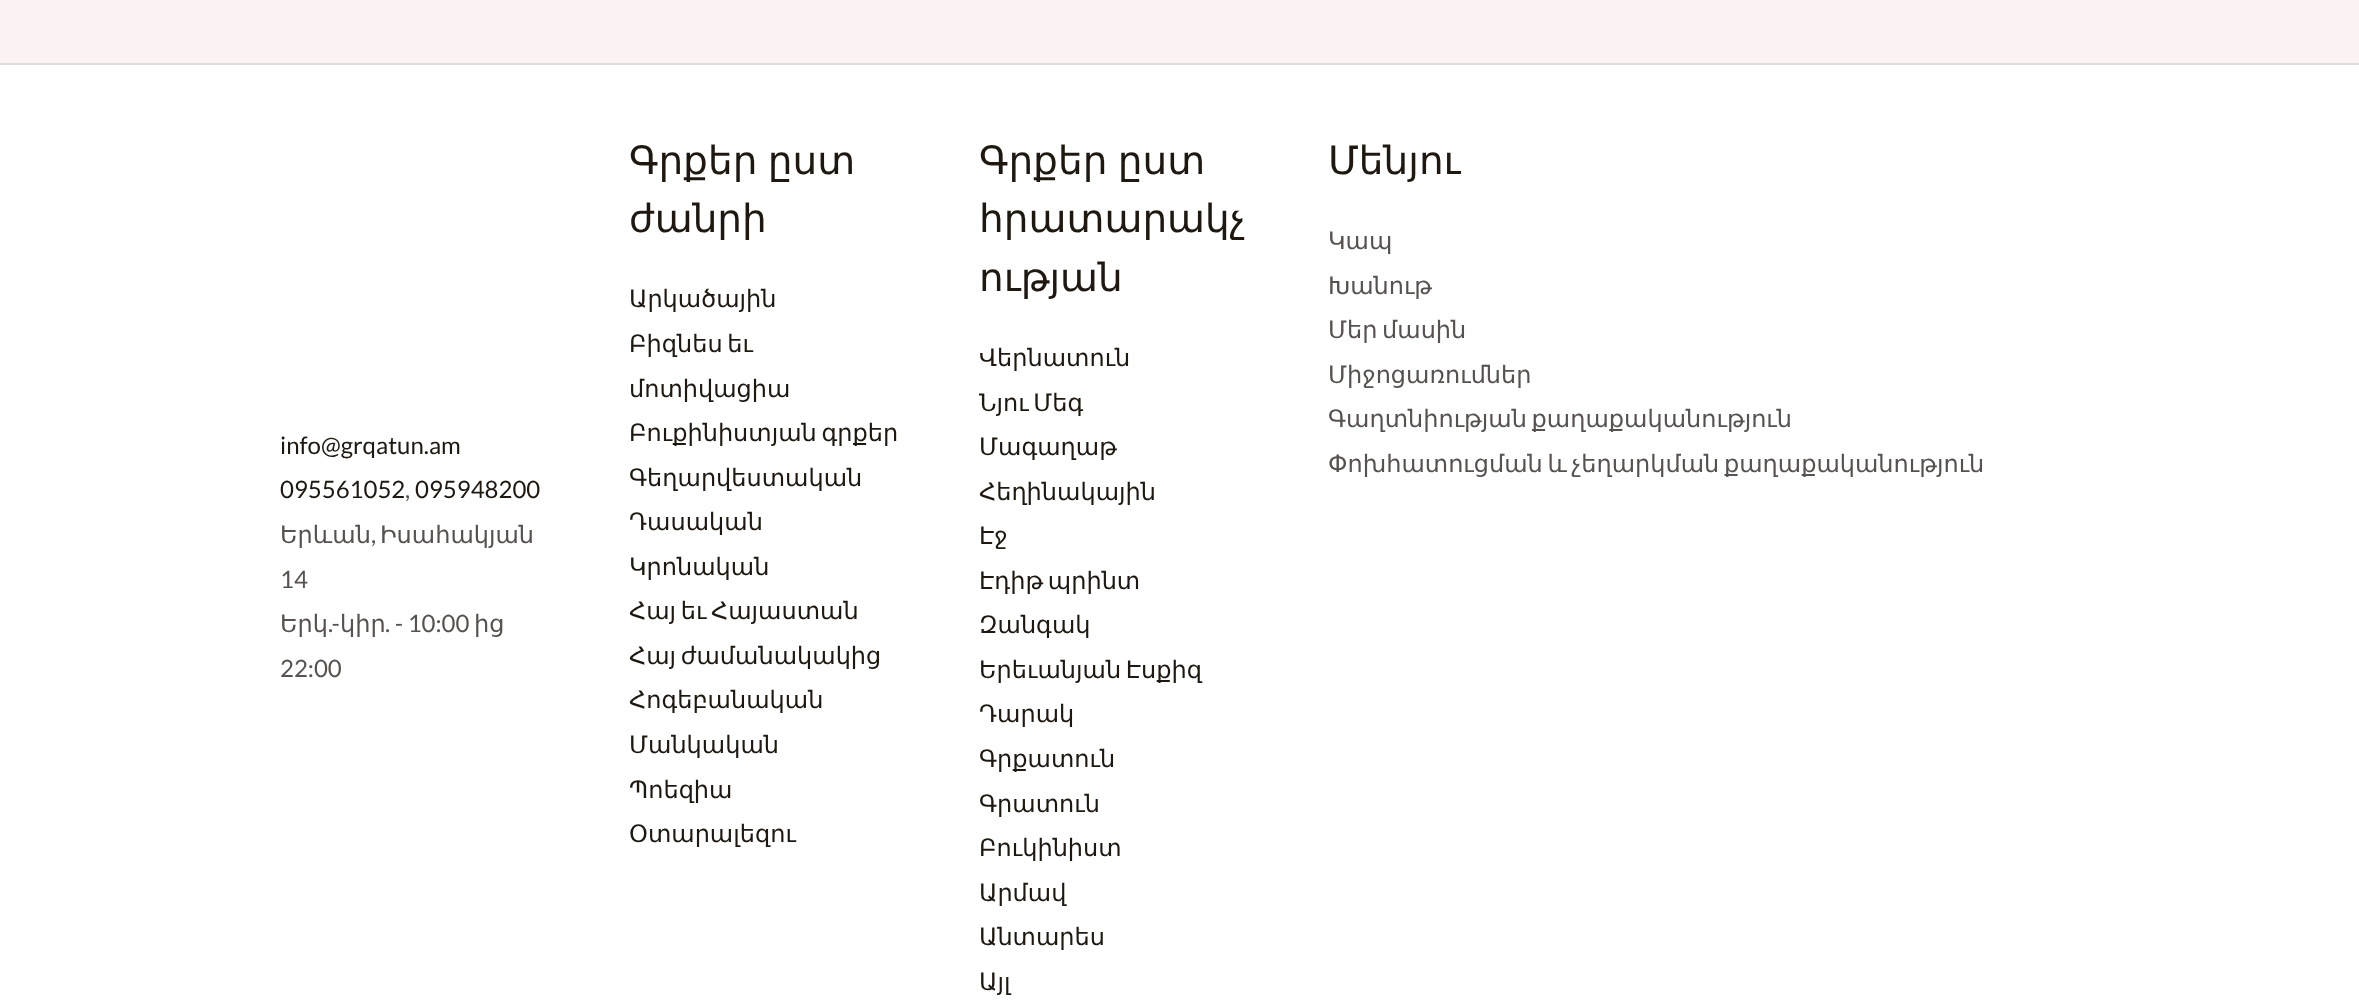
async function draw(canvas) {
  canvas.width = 2359;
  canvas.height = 1007;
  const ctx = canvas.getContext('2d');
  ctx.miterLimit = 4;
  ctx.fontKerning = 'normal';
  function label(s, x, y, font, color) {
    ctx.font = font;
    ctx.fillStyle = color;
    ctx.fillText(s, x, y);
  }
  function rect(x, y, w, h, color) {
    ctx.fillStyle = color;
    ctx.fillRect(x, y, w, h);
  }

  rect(0, 0, 2359, 1007, '#fbf3f3');
  rect(0, 65, 2359, 942, '#fff');
  rect(0, 63, 2359, 2, '#ddd');
  ctx.wordSpacing = '-2px';
  label('Գրքեր ըստ', 629, 174, '39px DejaVu Sans', '#1e1810');
  ctx.wordSpacing = '0px';
  label('ժանրի', 629, 232, '39px DejaVu Sans', '#1e1810');
  label('Արկածային', 629, 307, '24px DejaVu Sans', '#1e1810');
  ctx.wordSpacing = '-3px';
  label('Բիզնես եւ', 629, 352, '24px DejaVu Sans', '#1e1810');
  ctx.wordSpacing = '0px';
  label('մոտիվացիա', 629, 397, '24px DejaVu Sans', '#1e1810');
  ctx.wordSpacing = '-3px';
  label('Բուքինիստյան գրքեր', 629, 441, '24px DejaVu Sans', '#1e1810');
  ctx.wordSpacing = '0px';
  label('Գեղարվեստական', 629, 486, '24px DejaVu Sans', '#1e1810');
  label('Դասական', 629, 530, '24px DejaVu Sans', '#1e1810');
  label('Կրոնական', 629, 575, '24px DejaVu Sans', '#1e1810');
  ctx.wordSpacing = '-3px';
  label('Հայ եւ Հայաստան', 629, 619, '24px DejaVu Sans', '#1e1810');
  label('Հայ ժամանակակից', 629, 664, '24px DejaVu Sans', '#1e1810');
  ctx.wordSpacing = '0px';
  label('Հոգեբանական', 629, 708, '24px DejaVu Sans', '#1e1810');
  label('Մանկական', 629, 753, '24px DejaVu Sans', '#1e1810');
  label('Պոեզիա', 629, 798, '24px DejaVu Sans', '#1e1810');
  label('Օտարալեզու', 629, 842, '24px DejaVu Sans', '#1e1810');
  ctx.wordSpacing = '-2px';
  label('Գրքեր ըստ', 979, 174, '39px DejaVu Sans', '#1e1810');
  ctx.wordSpacing = '0px';
  label('հրատարակչ', 979, 232, '39px DejaVu Sans', '#1e1810');
  label('ության', 979, 291, '39px DejaVu Sans', '#1e1810');
  label('Վերնատուն', 979, 366, '24px DejaVu Sans', '#1e1810');
  ctx.wordSpacing = '-3px';
  label('Նյու Մեգ', 979, 411, '24px DejaVu Sans', '#1e1810');
  ctx.wordSpacing = '0px';
  label('Մագաղաթ', 979, 455, '24px DejaVu Sans', '#1e1810');
  label('Հեղինակային', 979, 500, '24px DejaVu Sans', '#1e1810');
  label('Էջ', 979, 544, '24px DejaVu Sans', '#1e1810');
  ctx.wordSpacing = '-3px';
  label('Էդիթ պրինտ', 979, 589, '24px DejaVu Sans', '#1e1810');
  ctx.wordSpacing = '0px';
  label('Զանգակ', 979, 633, '24px DejaVu Sans', '#1e1810');
  ctx.wordSpacing = '-3px';
  label('Երեւանյան Էսքիզ', 979, 678, '24px DejaVu Sans', '#1e1810');
  ctx.wordSpacing = '0px';
  label('Դարակ', 979, 722, '24px DejaVu Sans', '#1e1810');
  label('Գրքատուն', 979, 767, '24px DejaVu Sans', '#1e1810');
  label('Գրատուն', 979, 812, '24px DejaVu Sans', '#1e1810');
  label('Բուկինիստ', 979, 856, '24px DejaVu Sans', '#1e1810');
  label('Արմավ', 979, 901, '24px DejaVu Sans', '#1e1810');
  label('Անտարես', 979, 945, '24px DejaVu Sans', '#1e1810');
  label('Այլ', 979, 990, '24px DejaVu Sans', '#1e1810');
  label('Մենյու', 1328, 174, '39px DejaVu Sans', '#1e1810');
  label('Կապ', 1328, 249, '24px DejaVu Sans', '#575250');
  label('Խանութ', 1328, 294, '24px DejaVu Sans', '#575250');
  ctx.wordSpacing = '-3px';
  label('Մեր մասին', 1328, 338, '24px DejaVu Sans', '#575250');
  ctx.wordSpacing = '0px';
  label('Միջոցառումներ', 1328, 383, '24px DejaVu Sans', '#575250');
  ctx.wordSpacing = '-3px';
  label('Գաղտնիության քաղաքականություն', 1328, 427, '24px DejaVu Sans', '#575250');
  label('Փոխհատուցման և չեղարկման քաղաքականություն', 1328, 472, '24px DejaVu Sans', '#575250');
  ctx.wordSpacing = '0px';
  label('info@grqatun.am', 280, 454, '24px Lato', '#1e1810');
  label('095561052', 280, 498, '24px Lato', '#1e1810');
  label(',', 405, 498, '24px Lato', '#575250');
  label('095948200', 415, 498, '24px Lato', '#1e1810');
  label('Երևան', 280, 543, '24px DejaVu Sans', '#575250');
  label(',', 371, 543, '24px Lato', '#575250');
  label('Իսահակյան', 380, 543, '24px DejaVu Sans', '#575250');
  label('14', 280, 588, '24px Lato', '#575250');
  label('Երկ', 280, 632, '24px DejaVu Sans', '#575250');
  label('.-', 328, 632, '24px Lato', '#575250');
  label('կիր', 340, 632, '24px DejaVu Sans', '#575250');
  label('. - 10:00', 385, 632, '24px Lato', '#575250');
  label('ից', 474, 632, '24px DejaVu Sans', '#575250');
  label('22:00', 280, 677, '24px Lato', '#575250');
}

draw(document.querySelector('canvas'));
